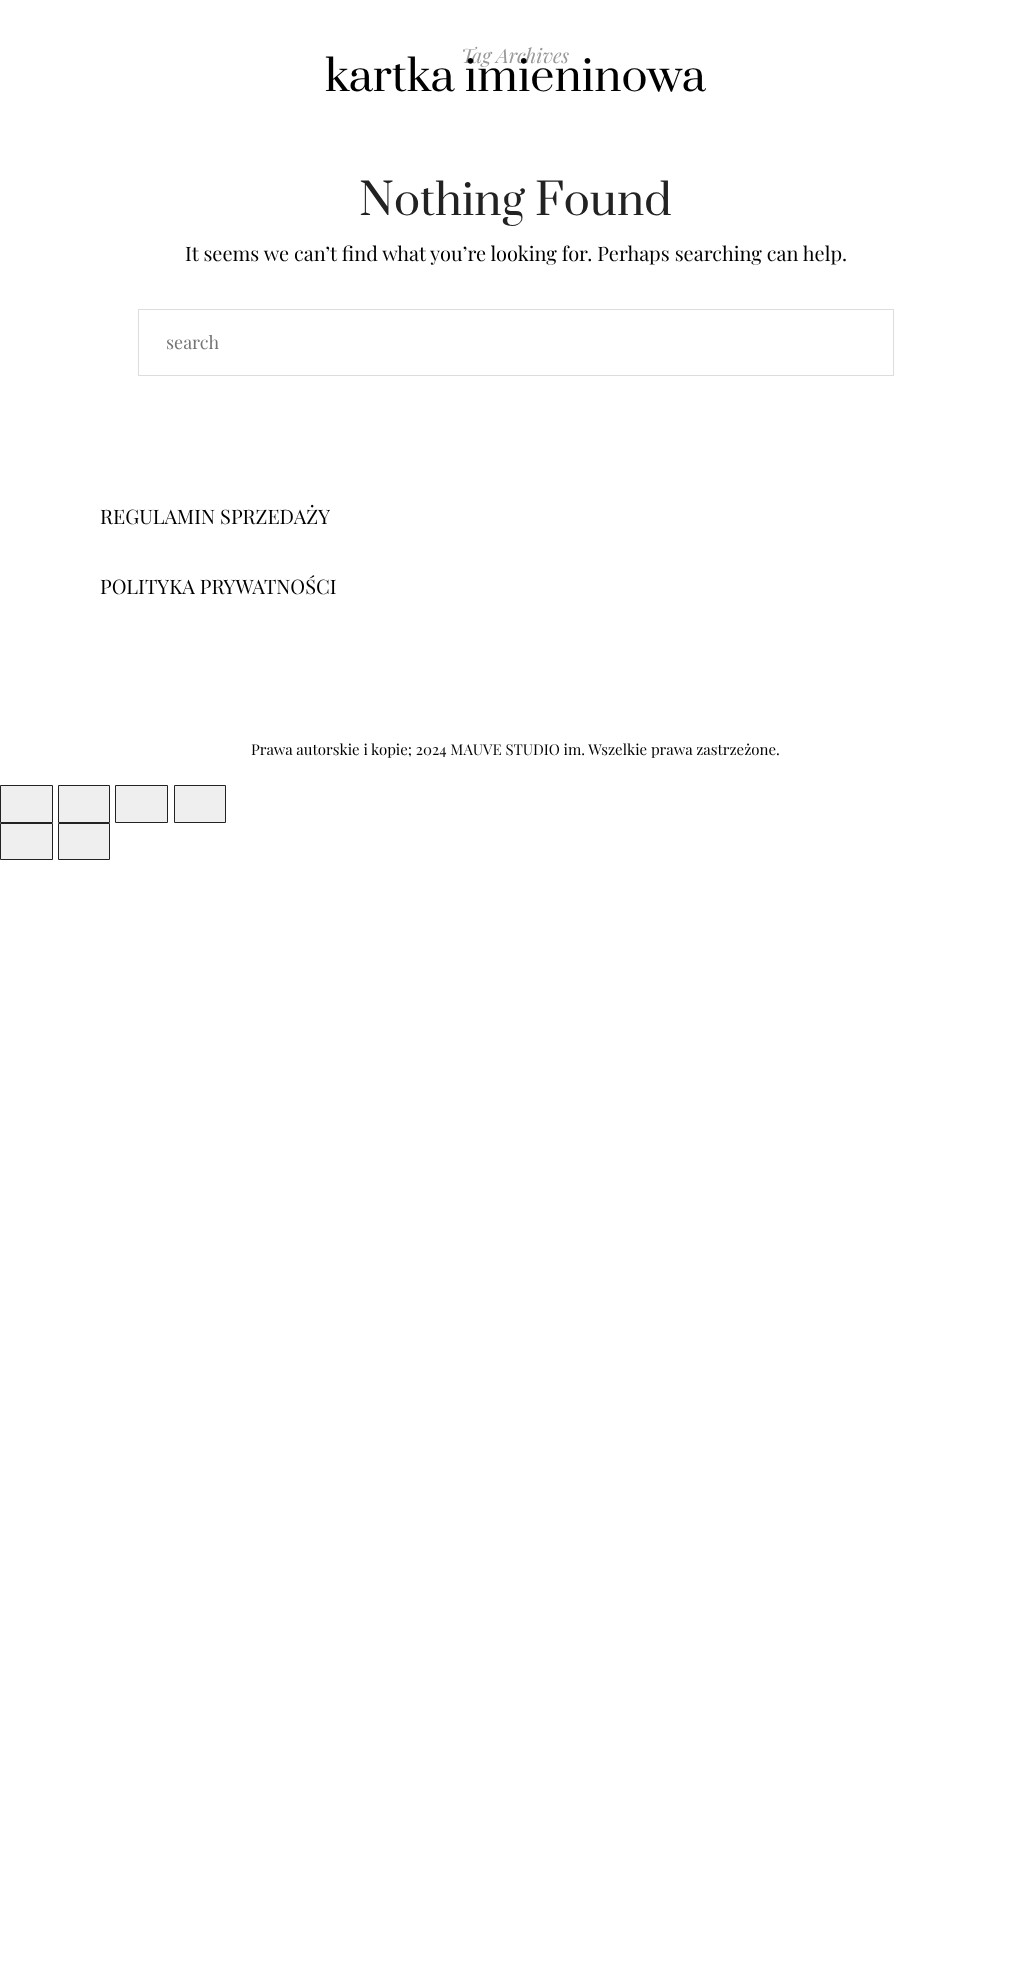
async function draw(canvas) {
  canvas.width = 1031;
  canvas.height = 1968;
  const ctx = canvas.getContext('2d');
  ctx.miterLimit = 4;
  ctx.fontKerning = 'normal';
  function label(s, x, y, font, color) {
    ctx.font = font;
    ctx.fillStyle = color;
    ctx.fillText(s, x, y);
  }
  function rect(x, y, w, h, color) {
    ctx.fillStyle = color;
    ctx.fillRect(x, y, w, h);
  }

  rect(0, 0, 1031, 1968, '#fff');
  label('Tag Archives', 461, 63, 'italic 20px Playfair Display', '#999');
  label('kartka imieninowa', 325, 91, '43px Prata', '#000');
  label('Nothing Found', 359, 215, '43px Prata', '#222');
  label('It seems we can’t find what you’re looking for. Perhaps searching can help.', 185, 261, '20px Playfair Display', '#000');
  ctx.strokeStyle = '#ddd';
  ctx.strokeRect(138.5, 309.5, 755, 66);
  label('search', 166, 349, '18px Playfair Display', '#757575');
  label('REGULAMIN SPRZEDAŻY', 100, 524, '20px Playfair Display', '#000');
  label('POLITYKA PRYWATNOŚCI', 100, 594, '20px Playfair Display', '#000');
  label('Prawa autorskie i kopie; 2024 MAUVE STUDIO im. Wszelkie prawa zastrzeżone.', 251, 755, '15px Playfair Display', '#000');
  ctx.fillStyle = '#efefef';
  ctx.beginPath();
  ctx.rect(0.5, 785.5, 52, 37);
  ctx.fill();
  ctx.strokeStyle = '#222';
  ctx.stroke();
  ctx.beginPath();
  ctx.rect(58.5, 785.5, 51, 37);
  ctx.fill();
  ctx.stroke();
  ctx.beginPath();
  ctx.rect(115.5, 785.5, 52, 37);
  ctx.fill();
  ctx.stroke();
  ctx.beginPath();
  ctx.rect(174.5, 785.5, 51, 37);
  ctx.fill();
  ctx.stroke();
  ctx.beginPath();
  ctx.rect(0.5, 823.5, 52, 36);
  ctx.fill();
  ctx.stroke();
  ctx.beginPath();
  ctx.rect(58.5, 823.5, 51, 36);
  ctx.fill();
  ctx.stroke();
}

draw(document.querySelector('canvas'));
